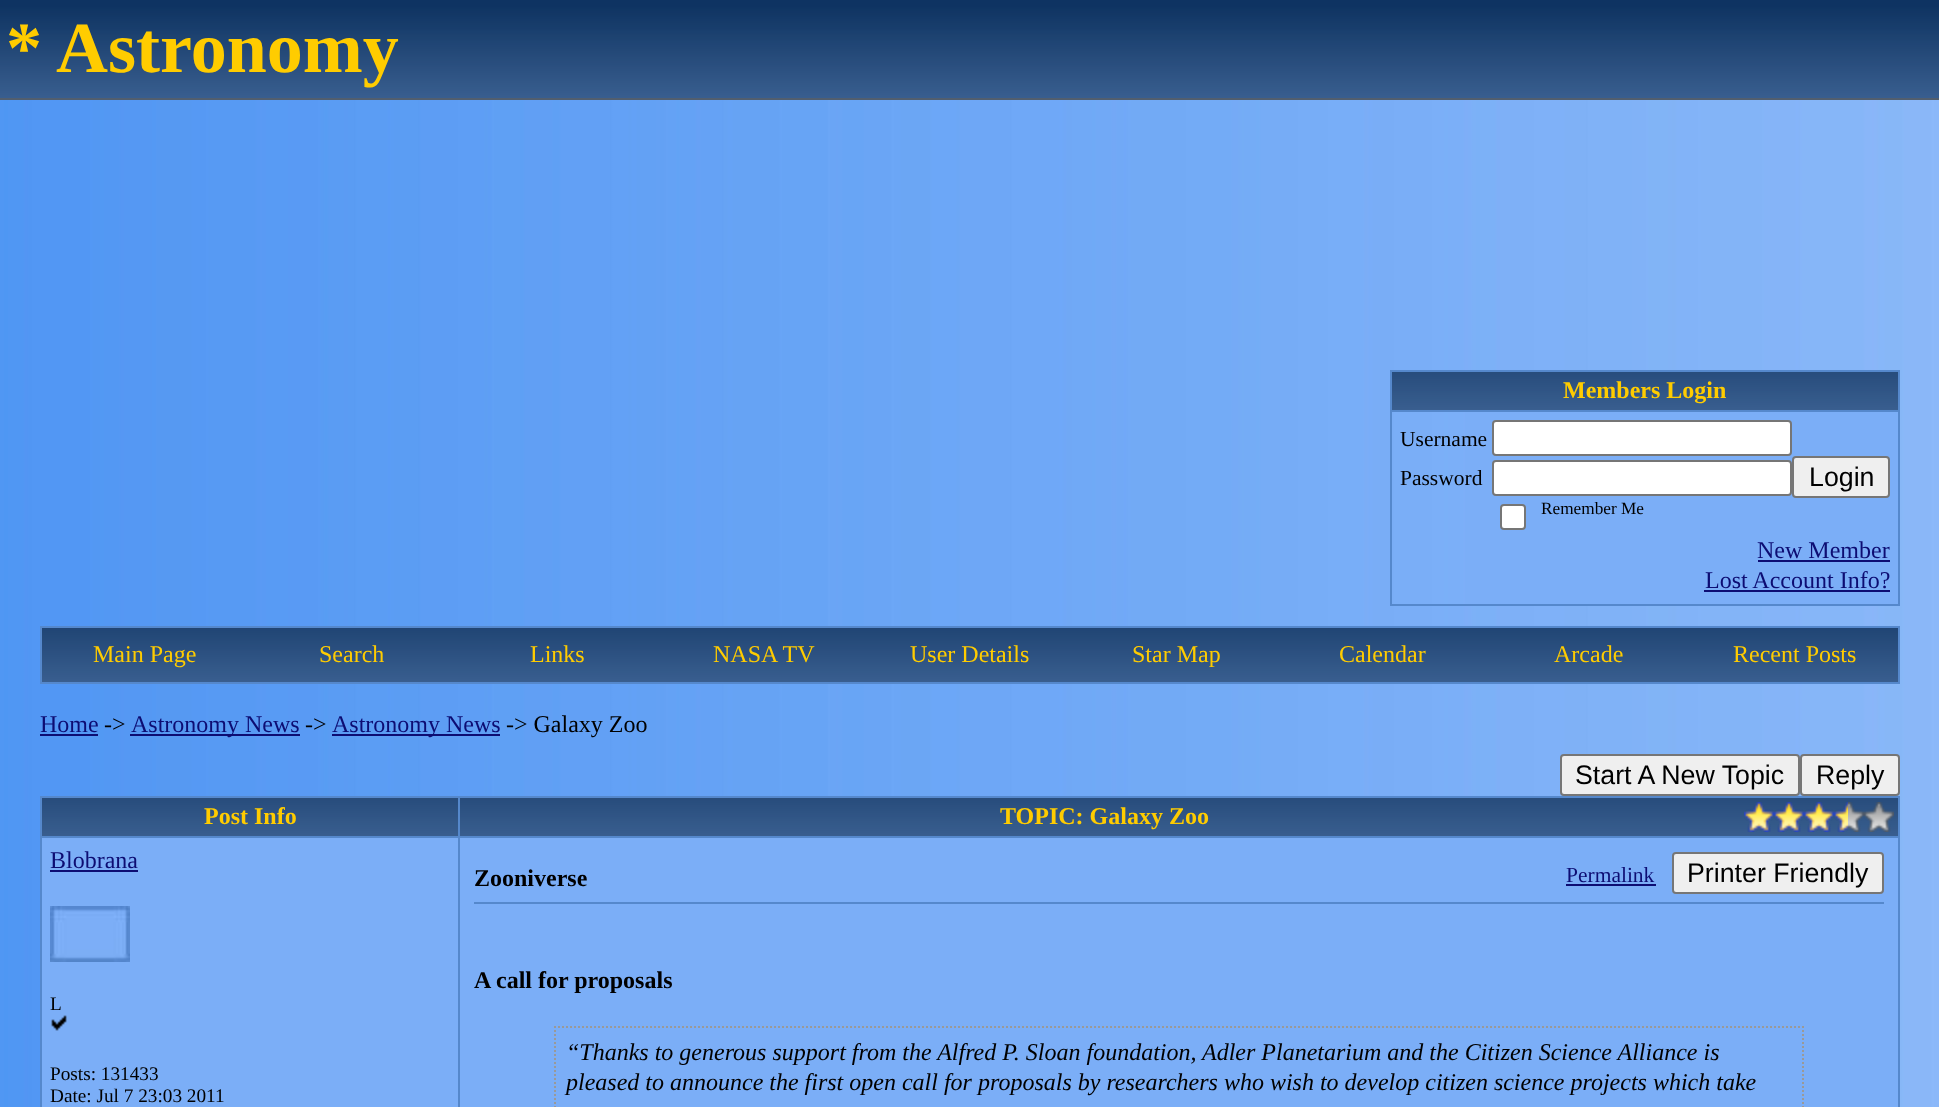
async function draw(canvas) {
  canvas.width = 1939;
  canvas.height = 1107;
  const ctx = canvas.getContext('2d');
  ctx.miterLimit = 4;
  ctx.fontKerning = 'normal';
  function label(s, x, y, font, color) {
    ctx.font = font;
    ctx.fillStyle = color;
    ctx.fillText(s, x, y);
  }
  function rect(x, y, w, h, color) {
    ctx.fillStyle = color;
    ctx.fillRect(x, y, w, h);
  }
  async function image(src, x, y, w, h) {
    const img = new Image();
    img.src = src;
    await img.decode();
    ctx.drawImage(img, x, y, w, h);
  }
  let path;

  rect(0, 0, 1939, 1107, '#fff');
  await image('assets/img1.png', 0, 100, 1939, 1007);
  await image('assets/img2.png', 0, 0, 1939, 98);
  rect(0, 98, 1939, 2, '#525e6e');
  label('* Astronomy', 6, 72, 'bold 72px Liberation Serif', '#fc0');
  rect(1390, 370, 510, 2, '#58c');
  rect(1898, 370, 2, 236, '#58c');
  rect(1390, 604, 510, 2, '#58c');
  rect(1390, 370, 2, 236, '#58c');
  await image('assets/img3.png', 1392, 372, 506, 38);
  rect(1390, 410, 510, 2, '#58c');
  label('Members Login', 1563, 398, 'bold 24px Liberation Serif', '#fc0');
  rect(1465, 412, 433, 192, '#7baef7');
  label('Username', 1400, 446, '21.5px Liberation Serif', '#000');
  ctx.fillStyle = '#fff';
  ctx.beginPath();
  ctx.roundRect(1493, 421, 298, 34, 3);
  ctx.fill();
  ctx.strokeStyle = '#767676';
  ctx.lineWidth = 2;
  ctx.stroke();
  label('Password', 1400, 485, '21.5px Liberation Serif', '#000');
  ctx.fillStyle = '#fff';
  ctx.beginPath();
  ctx.roundRect(1493, 461, 298, 34, 3);
  ctx.fill();
  ctx.stroke();
  ctx.fillStyle = '#efefef';
  ctx.beginPath();
  ctx.roundRect(1793, 457, 96, 40, 3);
  ctx.fill();
  ctx.stroke();
  label('Login', 1809, 486, '26.75px Liberation Sans', '#000');
  ctx.fillStyle = '#fff';
  ctx.beginPath();
  ctx.roundRect(1501, 505, 24, 24, 3);
  ctx.fill();
  ctx.stroke();
  label('Remember Me', 1541, 514, '17.25px Liberation Serif', '#000');
  label('New Member', 1757, 558, '24px Liberation Serif', '#0d0d73');
  rect(1758, 560, 132, 2, '#0d0d73');
  label('Lost Account Info?', 1705, 588, '24px Liberation Serif', '#0d0d73');
  rect(1704, 590, 186, 2, '#0d0d73');
  ctx.strokeStyle = '#58c';
  ctx.strokeRect(41, 627, 1858, 56);
  await image('assets/img4.png', 42, 628, 206, 54);
  label('Main Page', 93, 662, '24px Liberation Serif', '#fc0');
  await image('assets/img4.png', 248, 628, 206, 54);
  label('Search', 319, 662, '24px Liberation Serif', '#fc0');
  await image('assets/img4.png', 454, 628, 206, 54);
  label('Links', 530, 662, '24px Liberation Serif', '#fc0');
  await image('assets/img4.png', 660, 628, 206, 54);
  label('NASA TV', 713, 662, '24px Liberation Serif', '#fc0');
  await image('assets/img5.png', 866, 628, 208, 54);
  label('User Details', 910, 662, '24px Liberation Serif', '#fc0');
  await image('assets/img4.png', 1074, 628, 206, 54);
  label('Star Map', 1132, 662, '24px Liberation Serif', '#fc0');
  await image('assets/img4.png', 1280, 628, 206, 54);
  label('Calendar', 1339, 662, '24px Liberation Serif', '#fc0');
  await image('assets/img4.png', 1486, 628, 206, 54);
  label('Arcade', 1554, 662, '24px Liberation Serif', '#fc0');
  await image('assets/img4.png', 1692, 628, 206, 54);
  label('Recent Posts', 1733, 662, '24px Liberation Serif', '#fc0');
  label('Home', 40, 732, '24px Liberation Serif', '#0d0d73');
  rect(40, 734, 58, 2, '#0d0d73');
  label('->', 104, 732, '24px Liberation Serif', '#000');
  rect(130, 734, 170, 2, '#0d0d73');
  label('Astronomy News', 131, 732, '24px Liberation Serif', '#0d0d73');
  label('->', 305, 732, '24px Liberation Serif', '#000');
  rect(332, 734, 168, 2, '#0d0d73');
  label('Astronomy News', 332, 732, '24px Liberation Serif', '#0d0d73');
  label('-> Galaxy Zoo', 506, 732, '24px Liberation Serif', '#000');
  ctx.fillStyle = '#efefef';
  ctx.beginPath();
  ctx.roundRect(1561, 755, 238, 40, 3);
  ctx.fill();
  ctx.strokeStyle = '#767676';
  ctx.stroke();
  label('Start A New Topic', 1575, 784, '26.75px Liberation Sans', '#000');
  ctx.fillStyle = '#efefef';
  ctx.beginPath();
  ctx.roundRect(1801, 755, 98, 40, 3);
  ctx.fill();
  ctx.stroke();
  label('Reply', 1816, 784, '26.75px Liberation Sans', '#000');
  rect(40, 796, 1860, 2, '#58c');
  rect(1898, 796, 2, 311, '#58c');
  rect(40, 796, 2, 311, '#58c');
  await image('assets/img6.png', 42, 798, 416, 38);
  rect(458, 836, 1442, 2, '#58c');
  rect(458, 836, 2, 271, '#58c');
  rect(40, 836, 420, 2, '#58c');
  rect(458, 796, 2, 42, '#58c');
  label('Post Info', 204, 824, 'bold 24px Liberation Serif', '#fc0');
  await image('assets/img7.png', 460, 798, 1438, 38);
  label('TOPIC: Galaxy Zoo', 1000, 824, 'bold 24px Liberation Serif', '#fc0');
  await image('assets/img8.png', 1744, 802, 150, 30);
  await image('assets/img9.png', 1744, 802, 104, 30);
  rect(42, 838, 416, 269, '#7baef7');
  label('Blobrana', 50, 868, '24px Liberation Serif', '#0d0d73');
  rect(50, 870, 88, 2, '#0d0d73');
  await image('assets/img10.png', 50, 906, 80, 56);
  label('L', 50, 1010, '19.25px Liberation Serif', '#000');
  await image('assets/img11.png', 51, 1015, 16, 16);
  label('Posts: 131433', 50, 1080, '19.25px Liberation Serif', '#000');
  label('Date: Jul 7 23:03 2011', 50, 1102, '19.25px Liberation Serif', '#000');
  rect(460, 838, 1438, 269, '#7baef7');
  label('Zooniverse', 474, 886, 'bold 24px Liberation Serif', '#000');
  label('Permalink', 1566, 882, '21.5px Liberation Serif', '#0d0d73');
  rect(1566, 884, 90, 2, '#0d0d73');
  ctx.fillStyle = '#efefef';
  ctx.beginPath();
  ctx.roundRect(1673, 853, 210, 40, 3);
  ctx.fill();
  ctx.stroke();
  label('Printer Friendly', 1687, 882, '26.75px Liberation Sans', '#000');
  rect(474, 902, 1410, 2, '#58c');
  label('A call for proposals', 474, 988, 'bold 24px Liberation Serif', '#000');
  path = new Path2D('M554 1027H1804');
  ctx.strokeStyle = '#999';
  ctx.setLineDash([2, 2]);
  ctx.stroke(path);
  path = new Path2D('M1803 1026V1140');
  ctx.stroke(path);
  path = new Path2D('M555 1026V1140');
  ctx.stroke(path);
  label('“Thanks to generous support from the Alfred P. Sloan foundation, Adler Planetarium and the Citizen Science Alliance is', 566, 1060, 'italic 24px Liberation Serif', '#000');
  label('pleased to announce the first open call for proposals by researchers who wish to develop citizen science projects which take', 566, 1090, 'italic 24px Liberation Serif', '#000');
}

draw(document.querySelector('canvas'));
